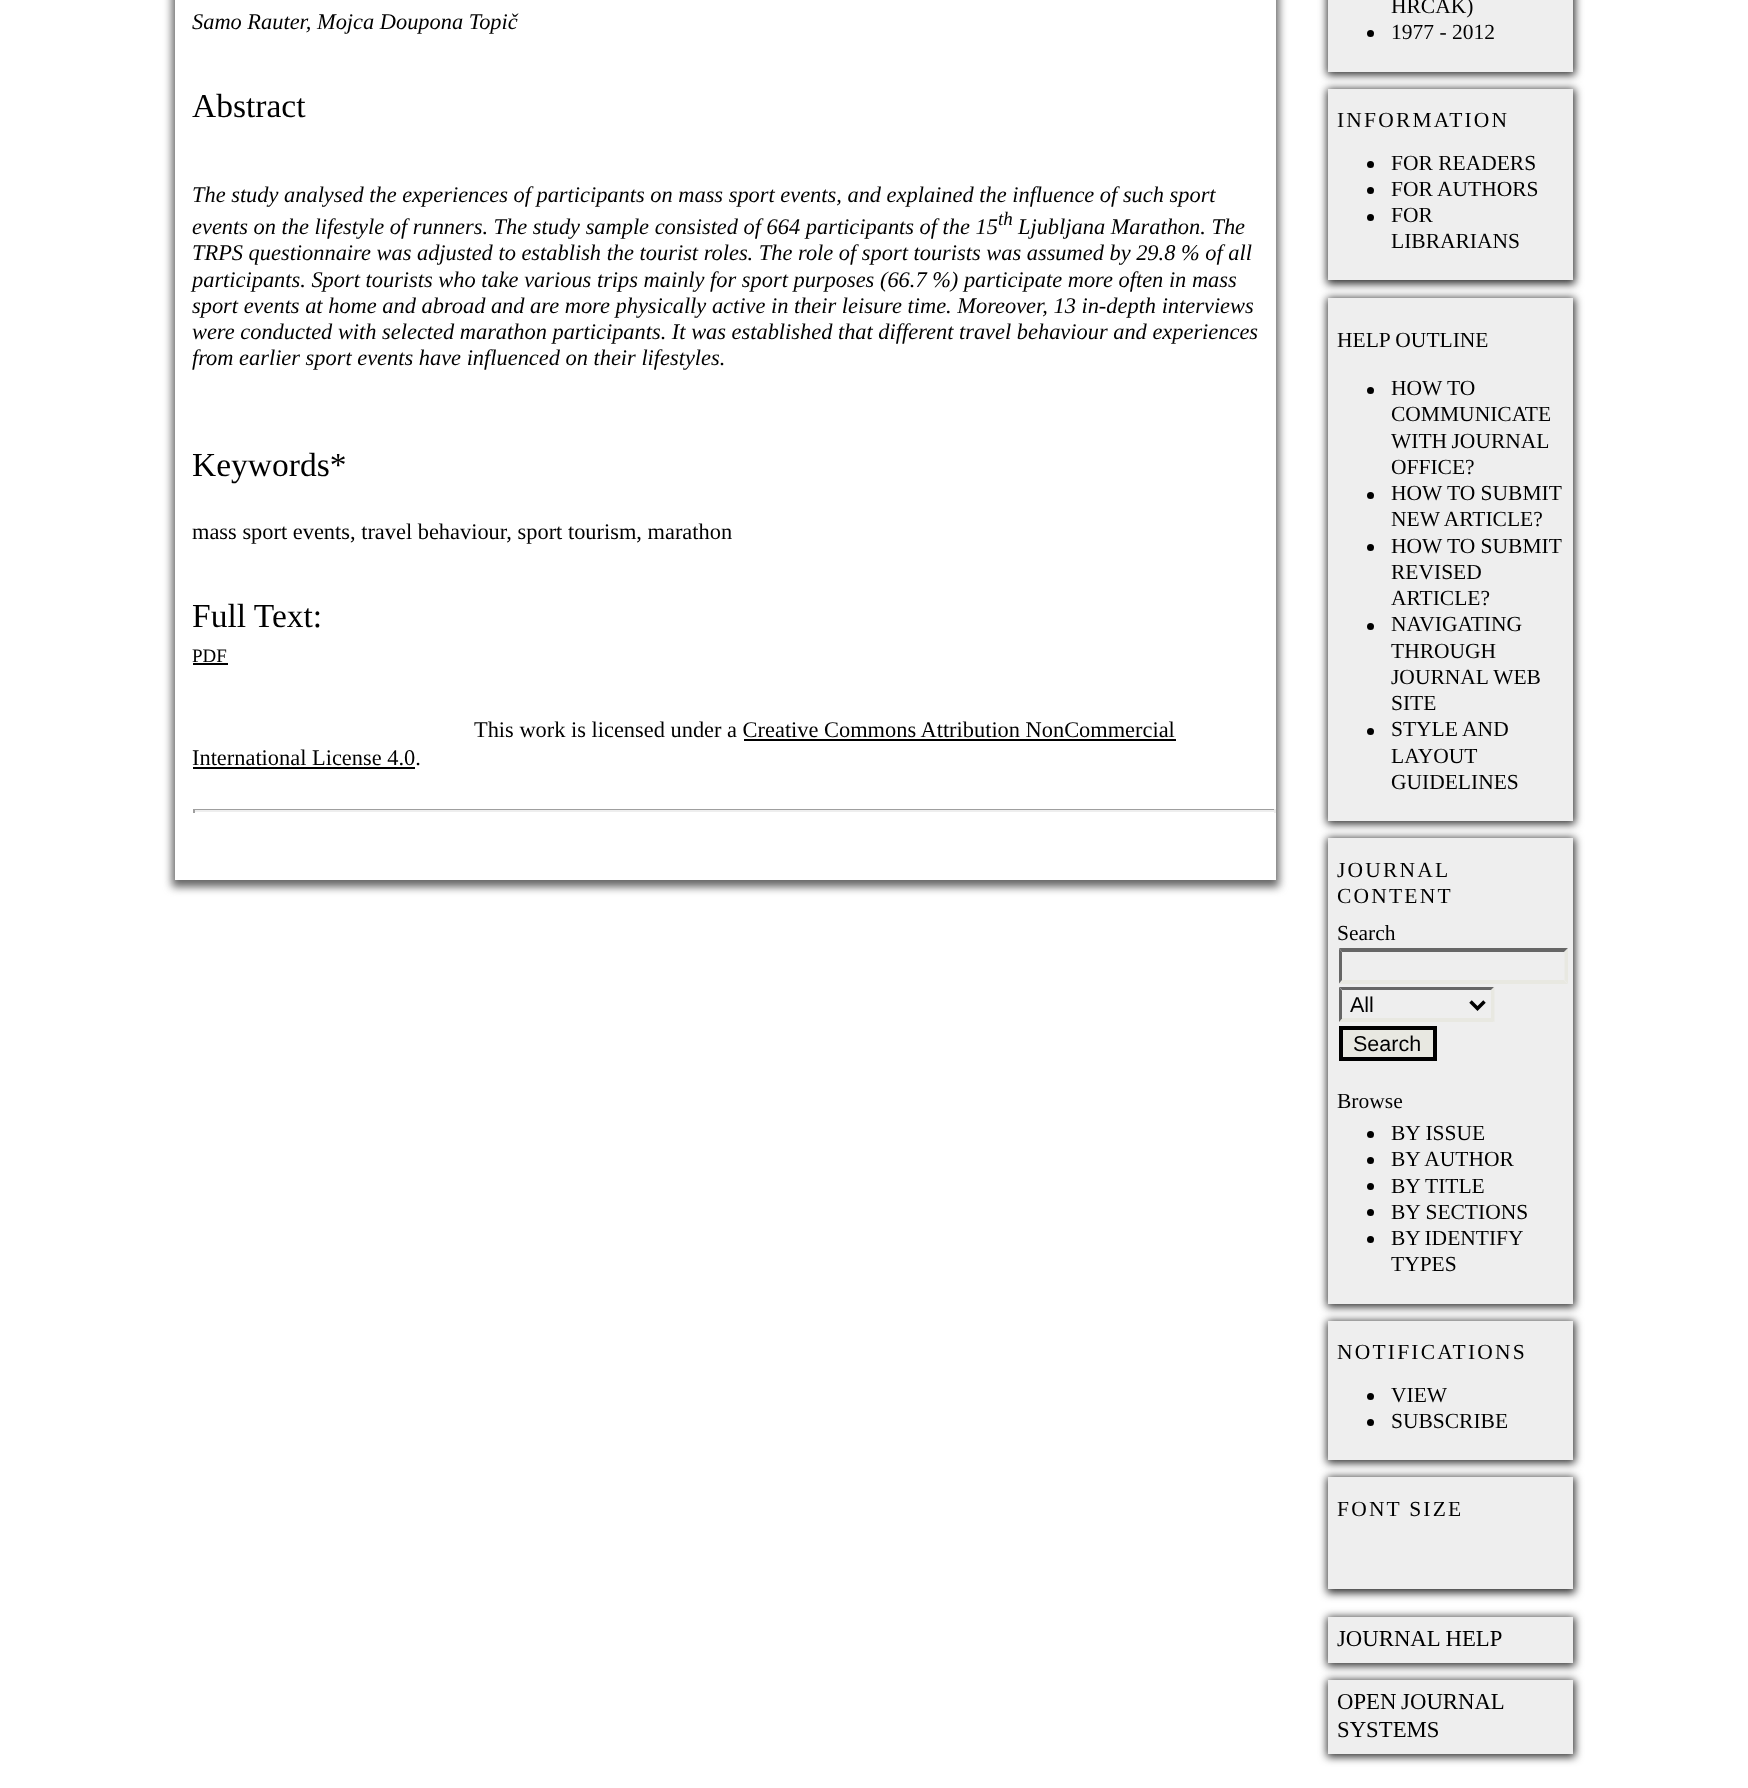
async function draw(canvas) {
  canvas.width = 1748;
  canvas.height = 1788;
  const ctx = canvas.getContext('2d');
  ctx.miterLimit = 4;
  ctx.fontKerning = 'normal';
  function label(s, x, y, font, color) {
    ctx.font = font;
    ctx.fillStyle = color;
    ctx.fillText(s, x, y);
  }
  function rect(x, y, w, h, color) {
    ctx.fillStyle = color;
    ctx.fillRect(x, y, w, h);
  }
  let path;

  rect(0, 0, 1748, 1788, '#fff');
  ctx.fillStyle = '#666';
  ctx.filter = 'blur(4.5px)';
  ctx.beginPath();
  ctx.rect(172, -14, 1107, 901);
  ctx.fill();
  ctx.filter = 'none';
  rect(175, 0, 1101, 880, '#fff');
  label('Samo Rauter, Mojca Doupona Topič', 192, 29, 'italic 22.4px Liberation Serif', '#000');
  label('Abstract', 192, 117, '33.5px Liberation Serif', '#000');
  label('The study analysed the experiences of participants on mass sport events, and explained the influence of such sport', 192, 202, 'italic 22.4px Liberation Serif', '#000');
  label('events on the lifestyle of runners. The study sample consisted of 664 participants of the 15', 192, 234, 'italic 22.4px Liberation Serif', '#000');
  label('th', 998, 225, 'italic 19px Liberation Serif', '#000');
  label('Ljubljana Marathon. The', 1018, 234, 'italic 22.4px Liberation Serif', '#000');
  label('TRPS questionnaire was adjusted to establish the tourist roles. The role of sport tourists was assumed by 29.8 % of all', 192, 260, 'italic 22.4px Liberation Serif', '#000');
  label('participants. Sport tourists who take various trips mainly for sport purposes (66.7 %) participate more often in mass', 192, 287, 'italic 22.4px Liberation Serif', '#000');
  label('sport events at home and abroad and are more physically active in their leisure time. Moreover, 13 in-depth interviews', 192, 313, 'italic 22.4px Liberation Serif', '#000');
  label('were conducted with selected marathon participants. It was established that different travel behaviour and experiences', 192, 339, 'italic 22.4px Liberation Serif', '#000');
  label('from earlier sport events have influenced on their lifestyles.', 192, 365, 'italic 22.4px Liberation Serif', '#000');
  label('Keywords*', 192, 476, '33.5px Liberation Serif', '#000');
  label('mass sport events, travel behaviour, sport tourism, marathon', 192, 539, '22.4px Liberation Serif', '#000');
  label('Full Text:', 192, 627, '33.5px Liberation Serif', '#000');
  label('PDF', 192, 662, '19px Liberation Serif', '#000');
  rect(193, 663, 35, 2, '#000');
  label('This work is licensed under a Creative Commons Attribution NonCommercial', 474, 737, '22.4px Liberation Serif', '#000');
  label('International License 4.0.', 192, 765, '22.4px Liberation Serif', '#000');
  rect(744, 739, 432, 2, '#000');
  rect(193, 767, 222, 2, '#000');
  rect(193, 809, 1083, 1, '#9f9f9f');
  rect(1274, 809, 2, 4, '#eee');
  rect(193, 810, 1083, 2, '#eee');
  rect(193, 809, 2, 4, '#9f9f9f');
  ctx.fillStyle = '#2f2f2f';
  ctx.filter = 'blur(4.5px)';
  ctx.beginPath();
  ctx.rect(1327, -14, 248, 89);
  ctx.fill();
  ctx.filter = 'none';
  rect(1328, 0, 245, 72, '#eee');
  label('HRČAK)', 1391, 13, '21.5px Liberation Serif', '#000');
  ctx.beginPath();
  ctx.arc(1370.5, 33.5, 3.5, 0, 2 * Math.PI);
  ctx.fill();
  label('1977 - 2012', 1391, 39, '21.5px Liberation Serif', '#000');
  ctx.fillStyle = '#2f2f2f';
  ctx.filter = 'blur(4.5px)';
  ctx.beginPath();
  ctx.rect(1327, 89, 248, 195);
  ctx.fill();
  ctx.filter = 'none';
  rect(1328, 89, 245, 191, '#eee');
  ctx.letterSpacing = '2.2px';
  label('INFORMATION', 1337, 127, '21.5px Liberation Serif', '#000');
  ctx.beginPath();
  ctx.arc(1370.5, 164.5, 3.5, 0, 2 * Math.PI);
  ctx.fill();
  ctx.letterSpacing = '0px';
  label('FOR READERS', 1391, 170, '21.5px Liberation Serif', '#000');
  ctx.beginPath();
  ctx.arc(1370.5, 190.5, 3.5, 0, 2 * Math.PI);
  ctx.fill();
  label('FOR AUTHORS', 1391, 196, '21.5px Liberation Serif', '#000');
  ctx.beginPath();
  ctx.arc(1370.5, 217.5, 3.5, 0, 2 * Math.PI);
  ctx.fill();
  label('FOR', 1391, 222, '21.5px Liberation Serif', '#000');
  label('LIBRARIANS', 1391, 248, '21.5px Liberation Serif', '#000');
  ctx.fillStyle = '#2f2f2f';
  ctx.filter = 'blur(4.5px)';
  ctx.beginPath();
  ctx.rect(1327, 298, 248, 526);
  ctx.fill();
  ctx.filter = 'none';
  rect(1328, 298, 245, 523, '#eee');
  label('HELP OUTLINE', 1337, 347, '21.5px Liberation Serif', '#000');
  ctx.beginPath();
  ctx.arc(1370.5, 390.5, 3.5, 0, 2 * Math.PI);
  ctx.fill();
  label('HOW TO', 1391, 395, '21.5px Liberation Serif', '#000');
  label('COMMUNICATE', 1391, 421, '21.5px Liberation Serif', '#000');
  ctx.wordSpacing = '-1px';
  label('WITH JOURNAL', 1391, 448, '21.5px Liberation Serif', '#000');
  ctx.wordSpacing = '0px';
  label('OFFICE?', 1391, 474, '21.5px Liberation Serif', '#000');
  ctx.beginPath();
  ctx.arc(1370.5, 495.5, 3.5, 0, 2 * Math.PI);
  ctx.fill();
  label('HOW TO SUBMIT', 1391, 500, '21.5px Liberation Serif', '#000');
  label('NEW ARTICLE?', 1391, 526, '21.5px Liberation Serif', '#000');
  ctx.beginPath();
  ctx.arc(1370.5, 547.5, 3.5, 0, 2 * Math.PI);
  ctx.fill();
  label('HOW TO SUBMIT', 1391, 553, '21.5px Liberation Serif', '#000');
  label('REVISED', 1391, 579, '21.5px Liberation Serif', '#000');
  label('ARTICLE?', 1391, 605, '21.5px Liberation Serif', '#000');
  ctx.beginPath();
  ctx.arc(1370.5, 626.5, 3.5, 0, 2 * Math.PI);
  ctx.fill();
  label('NAVIGATING', 1391, 631, '21.5px Liberation Serif', '#000');
  label('THROUGH', 1391, 658, '21.5px Liberation Serif', '#000');
  label('JOURNAL WEB', 1391, 684, '21.5px Liberation Serif', '#000');
  label('SITE', 1391, 710, '21.5px Liberation Serif', '#000');
  ctx.beginPath();
  ctx.arc(1370.5, 731.5, 3.5, 0, 2 * Math.PI);
  ctx.fill();
  label('STYLE AND', 1391, 736, '21.5px Liberation Serif', '#000');
  label('LAYOUT', 1391, 763, '21.5px Liberation Serif', '#000');
  label('GUIDELINES', 1391, 789, '21.5px Liberation Serif', '#000');
  ctx.fillStyle = '#2f2f2f';
  ctx.filter = 'blur(4.5px)';
  ctx.beginPath();
  ctx.rect(1327, 838, 248, 469);
  ctx.fill();
  ctx.filter = 'none';
  rect(1328, 838, 245, 466, '#eee');
  ctx.letterSpacing = '2.2px';
  label('JOURNAL', 1337, 877, '21.5px Liberation Serif', '#000');
  label('CONTENT', 1337, 903, '21.5px Liberation Serif', '#000');
  ctx.letterSpacing = '0px';
  label('Search', 1337, 940, '21.5px Liberation Serif', '#000');
  ctx.fillStyle = '#666';
  path = new Path2D('M1339 948H1568L1564 952H1342Z');
  ctx.fill(path);
  ctx.fillStyle = '#e8e8e1';
  path = new Path2D('M1568 948.5V983.5L1564.5 980V952Z');
  ctx.fill(path);
  path = new Path2D('M1568 984H1339L1342 980H1564Z');
  ctx.fill(path);
  ctx.fillStyle = '#666';
  path = new Path2D('M1339 983.5V948.5L1342 952V980Z');
  ctx.fill(path);
  path = new Path2D('M1339 987H1494L1491 990H1342Z');
  ctx.fill(path);
  ctx.fillStyle = '#e8e8e1';
  path = new Path2D('M1494.5 987V1022L1491 1018.5V990.5Z');
  ctx.fill(path);
  path = new Path2D('M1494 1022H1339L1342 1018H1491Z');
  ctx.fill(path);
  ctx.fillStyle = '#666';
  path = new Path2D('M1339 1022V987L1342 990.5V1018.5Z');
  ctx.fill(path);
  path = new Path2D('M1470.5 1001.5L1477.5 1008.5L1484.5 1001.5');
  ctx.strokeStyle = '#000';
  ctx.lineWidth = 3.5;
  ctx.stroke(path);
  label('All', 1350, 1012, '21.5px Liberation Sans', '#000');
  ctx.fillStyle = '#e8e8e1';
  ctx.beginPath();
  ctx.rect(1341, 1028, 94, 31);
  ctx.fill();
  ctx.lineWidth = 4;
  ctx.stroke();
  label('Search', 1353, 1051, '21.5px Liberation Sans', '#000');
  label('Browse', 1337, 1108, '21.5px Liberation Serif', '#000');
  ctx.beginPath();
  ctx.arc(1370.5, 1134.5, 3.5, 0, 2 * Math.PI);
  ctx.fill();
  label('BY ISSUE', 1391, 1140, '21.5px Liberation Serif', '#000');
  ctx.beginPath();
  ctx.arc(1370.5, 1160.5, 3.5, 0, 2 * Math.PI);
  ctx.fill();
  label('BY AUTHOR', 1391, 1166, '21.5px Liberation Serif', '#000');
  ctx.beginPath();
  ctx.arc(1370.5, 1186.5, 3.5, 0, 2 * Math.PI);
  ctx.fill();
  label('BY TITLE', 1391, 1193, '21.5px Liberation Serif', '#000');
  ctx.beginPath();
  ctx.arc(1370.5, 1212.5, 3.5, 0, 2 * Math.PI);
  ctx.fill();
  label('BY SECTIONS', 1391, 1219, '21.5px Liberation Serif', '#000');
  ctx.beginPath();
  ctx.arc(1370.5, 1239.5, 3.5, 0, 2 * Math.PI);
  ctx.fill();
  ctx.wordSpacing = '-1px';
  label('BY IDENTIFY', 1391, 1245, '21.5px Liberation Serif', '#000');
  ctx.wordSpacing = '0px';
  label('TYPES', 1391, 1271, '21.5px Liberation Serif', '#000');
  ctx.fillStyle = '#2f2f2f';
  ctx.filter = 'blur(4.5px)';
  ctx.beginPath();
  ctx.rect(1327, 1321, 248, 142);
  ctx.fill();
  ctx.filter = 'none';
  rect(1328, 1321, 245, 139, '#eee');
  ctx.letterSpacing = '2.2px';
  label('NOTIFICATIONS', 1337, 1359, '21.5px Liberation Serif', '#000');
  ctx.beginPath();
  ctx.arc(1370.5, 1396.5, 3.5, 0, 2 * Math.PI);
  ctx.fill();
  ctx.letterSpacing = '0px';
  label('VIEW', 1391, 1402, '21.5px Liberation Serif', '#000');
  ctx.beginPath();
  ctx.arc(1370.5, 1422.5, 3.5, 0, 2 * Math.PI);
  ctx.fill();
  label('SUBSCRIBE', 1391, 1428, '21.5px Liberation Serif', '#000');
  ctx.fillStyle = '#2f2f2f';
  ctx.filter = 'blur(4.5px)';
  ctx.beginPath();
  ctx.rect(1327, 1477, 248, 116);
  ctx.fill();
  ctx.filter = 'none';
  rect(1328, 1477, 245, 112, '#eee');
  ctx.letterSpacing = '2.2px';
  label('FONT SIZE', 1337, 1516, '21.5px Liberation Serif', '#000');
  ctx.fillStyle = '#2f2f2f';
  ctx.filter = 'blur(4.5px)';
  ctx.beginPath();
  ctx.rect(1327, 1617, 248, 49);
  ctx.fill();
  ctx.filter = 'none';
  rect(1328, 1617, 245, 46, '#eee');
  ctx.letterSpacing = '0px';
  label('JOURNAL HELP', 1337, 1646, '22.75px Liberation Serif', '#000');
  ctx.fillStyle = '#2f2f2f';
  ctx.filter = 'blur(4.5px)';
  ctx.beginPath();
  ctx.rect(1327, 1680, 248, 77);
  ctx.fill();
  ctx.filter = 'none';
  rect(1328, 1680, 245, 74, '#eee');
  ctx.wordSpacing = '-1px';
  label('OPEN JOURNAL', 1337, 1709, '22.75px Liberation Serif', '#000');
  ctx.wordSpacing = '0px';
  label('SYSTEMS', 1337, 1737, '22.75px Liberation Serif', '#000');
}

draw(document.querySelector('canvas'));
